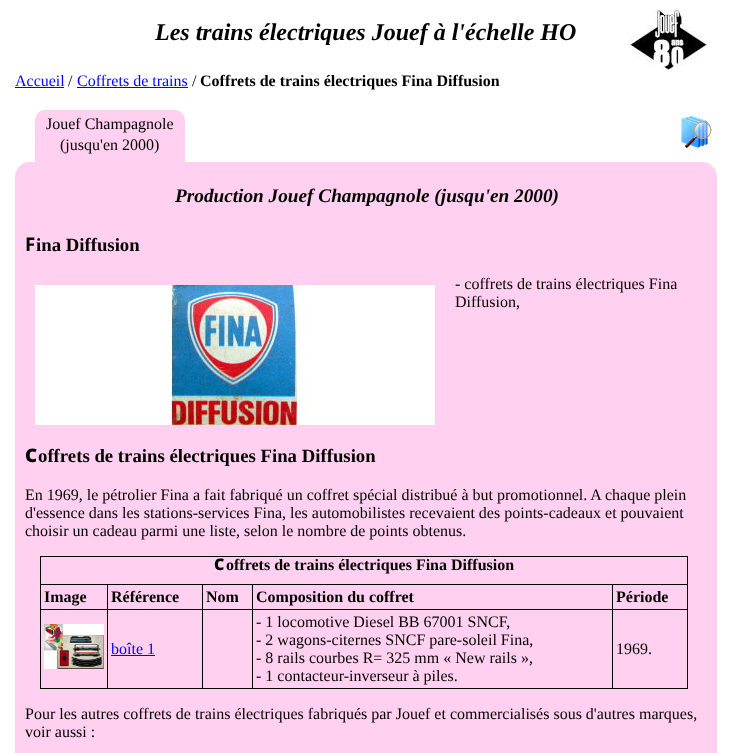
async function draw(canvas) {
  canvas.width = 732;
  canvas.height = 753;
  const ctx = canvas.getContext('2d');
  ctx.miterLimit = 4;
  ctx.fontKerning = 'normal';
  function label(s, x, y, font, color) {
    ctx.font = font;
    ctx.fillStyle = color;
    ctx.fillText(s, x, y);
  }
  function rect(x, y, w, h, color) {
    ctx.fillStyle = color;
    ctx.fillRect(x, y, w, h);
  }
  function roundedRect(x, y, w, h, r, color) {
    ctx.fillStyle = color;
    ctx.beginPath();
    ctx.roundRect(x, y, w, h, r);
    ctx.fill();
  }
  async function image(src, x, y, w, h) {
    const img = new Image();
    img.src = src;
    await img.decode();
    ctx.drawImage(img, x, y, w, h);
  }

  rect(0, 0, 732, 753, '#fff');
  await image('assets/img1.png', 630, 10, 77, 60);
  label('Les trains électriques Jouef à l\'échelle HO', 155, 40, 'italic bold 24px Liberation Serif', '#000');
  label('Accueil', 15, 86, '16px Liberation Serif', '#00f');
  rect(15, 87, 49, 1, '#00f');
  label('/', 68, 86, '16px Liberation Serif', '#000');
  label('Coffrets de trains', 77, 86, '16px Liberation Serif', '#00f');
  rect(77, 87, 111, 1, '#00f');
  label('/', 192, 86, '16px Liberation Serif', '#000');
  label('Coffrets de trains électriques Fina Diffusion', 200, 86, 'bold 16px Liberation Serif', '#000');
  ctx.fillStyle = '#ffd0f0';
  ctx.beginPath();
  ctx.roundRect(35, 110, 150, 52, [10, 10, 0, 0]);
  ctx.fill();
  label('Jouef Champagnole', 46, 129, '16px Liberation Serif', '#000');
  label('(jusqu\'en 2000)', 60, 150, '16px Liberation Serif', '#000');
  await image('assets/img2.png', 681, 116, 31, 32);
  roundedRect(15, 162, 702, 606, 15, '#ffd0f0');
  label('Production Jouef Champagnole (jusqu\'en 2000)', 175, 202, 'italic bold 19.25px Liberation Serif', '#000');
  label('F', 25, 251, 'bold 18.75px Noto Sans', '#000');
  label('ina Diffusion', 36, 251, 'bold 18.75px Liberation Serif', '#000');
  await image('assets/img3.png', 35, 285, 400, 140);
  label('- coffrets de trains électriques Fina', 455, 289, '16px Liberation Serif', '#000');
  label('Diffusion,', 455, 307, '16px Liberation Serif', '#000');
  label('C', 25, 462, '900 18.75px Noto Sans', '#000');
  label('offrets de trains électriques Fina Diffusion', 38, 462, 'bold 18.75px Liberation Serif', '#000');
  label('En 1969, le pétrolier Fina a fait fabriqué un coffret spécial distribué à but promotionnel. A chaque plein', 25, 500, '16px Liberation Serif', '#000');
  label('d\'essence dans les stations-services Fina, les automobilistes recevaient des points-cadeaux et pouvaient', 25, 518, '16px Liberation Serif', '#000');
  label('choisir un cadeau parmi une liste, selon le nombre de points obtenus.', 25, 536, '16px Liberation Serif', '#000');
  rect(40, 556, 648, 1, '#000');
  rect(687, 556, 1, 133, '#000');
  rect(40, 688, 648, 1, '#000');
  rect(40, 556, 1, 133, '#000');
  label('C', 214, 570, '900 16px Noto Sans', '#000');
  label('offrets de trains électriques Fina Diffusion', 226, 570, 'bold 16px Liberation Serif', '#000');
  rect(612, 584, 76, 1, '#000');
  rect(612, 609, 76, 1, '#000');
  rect(612, 609, 1, 80, '#000');
  rect(252, 609, 361, 1, '#000');
  rect(612, 584, 1, 26, '#000');
  rect(252, 584, 361, 1, '#000');
  rect(252, 609, 1, 80, '#000');
  rect(202, 609, 51, 1, '#000');
  rect(252, 584, 1, 26, '#000');
  rect(202, 584, 51, 1, '#000');
  rect(202, 609, 1, 80, '#000');
  rect(107, 609, 96, 1, '#000');
  rect(202, 584, 1, 26, '#000');
  rect(107, 584, 96, 1, '#000');
  rect(107, 609, 1, 80, '#000');
  rect(40, 609, 68, 1, '#000');
  rect(107, 584, 1, 26, '#000');
  rect(40, 584, 68, 1, '#000');
  label('Image', 44, 602, 'bold 16px Liberation Serif', '#000');
  label('Référence', 111, 602, 'bold 16px Liberation Serif', '#000');
  label('Nom', 206, 602, 'bold 16px Liberation Serif', '#000');
  label('Composition du coffret', 256, 602, 'bold 16px Liberation Serif', '#000');
  label('Période', 616, 602, 'bold 16px Liberation Serif', '#000');
  await image('assets/img4.png', 44, 624, 60, 45);
  label('boîte 1', 111, 654, '16px Liberation Serif', '#00f');
  rect(111, 655, 44, 1, '#00f');
  label('- 1 locomotive Diesel BB 67001 SNCF,', 256, 627, '16px Liberation Serif', '#000');
  label('- 2 wagons-citernes SNCF pare-soleil Fina,', 256, 645, '16px Liberation Serif', '#000');
  label('- 8 rails courbes R= 325 mm « New rails »,', 256, 663, '16px Liberation Serif', '#000');
  label('- 1 contacteur-inverseur à piles.', 256, 681, '16px Liberation Serif', '#000');
  label('1969.', 616, 654, '16px Liberation Serif', '#000');
  label('Pour les autres coffrets de trains électriques fabriqués par Jouef et commercialisés sous d\'autres marques,', 25, 719, '16px Liberation Serif', '#000');
  label('voir aussi :', 25, 737, '16px Liberation Serif', '#000');
}

draw(document.querySelector('canvas'));
